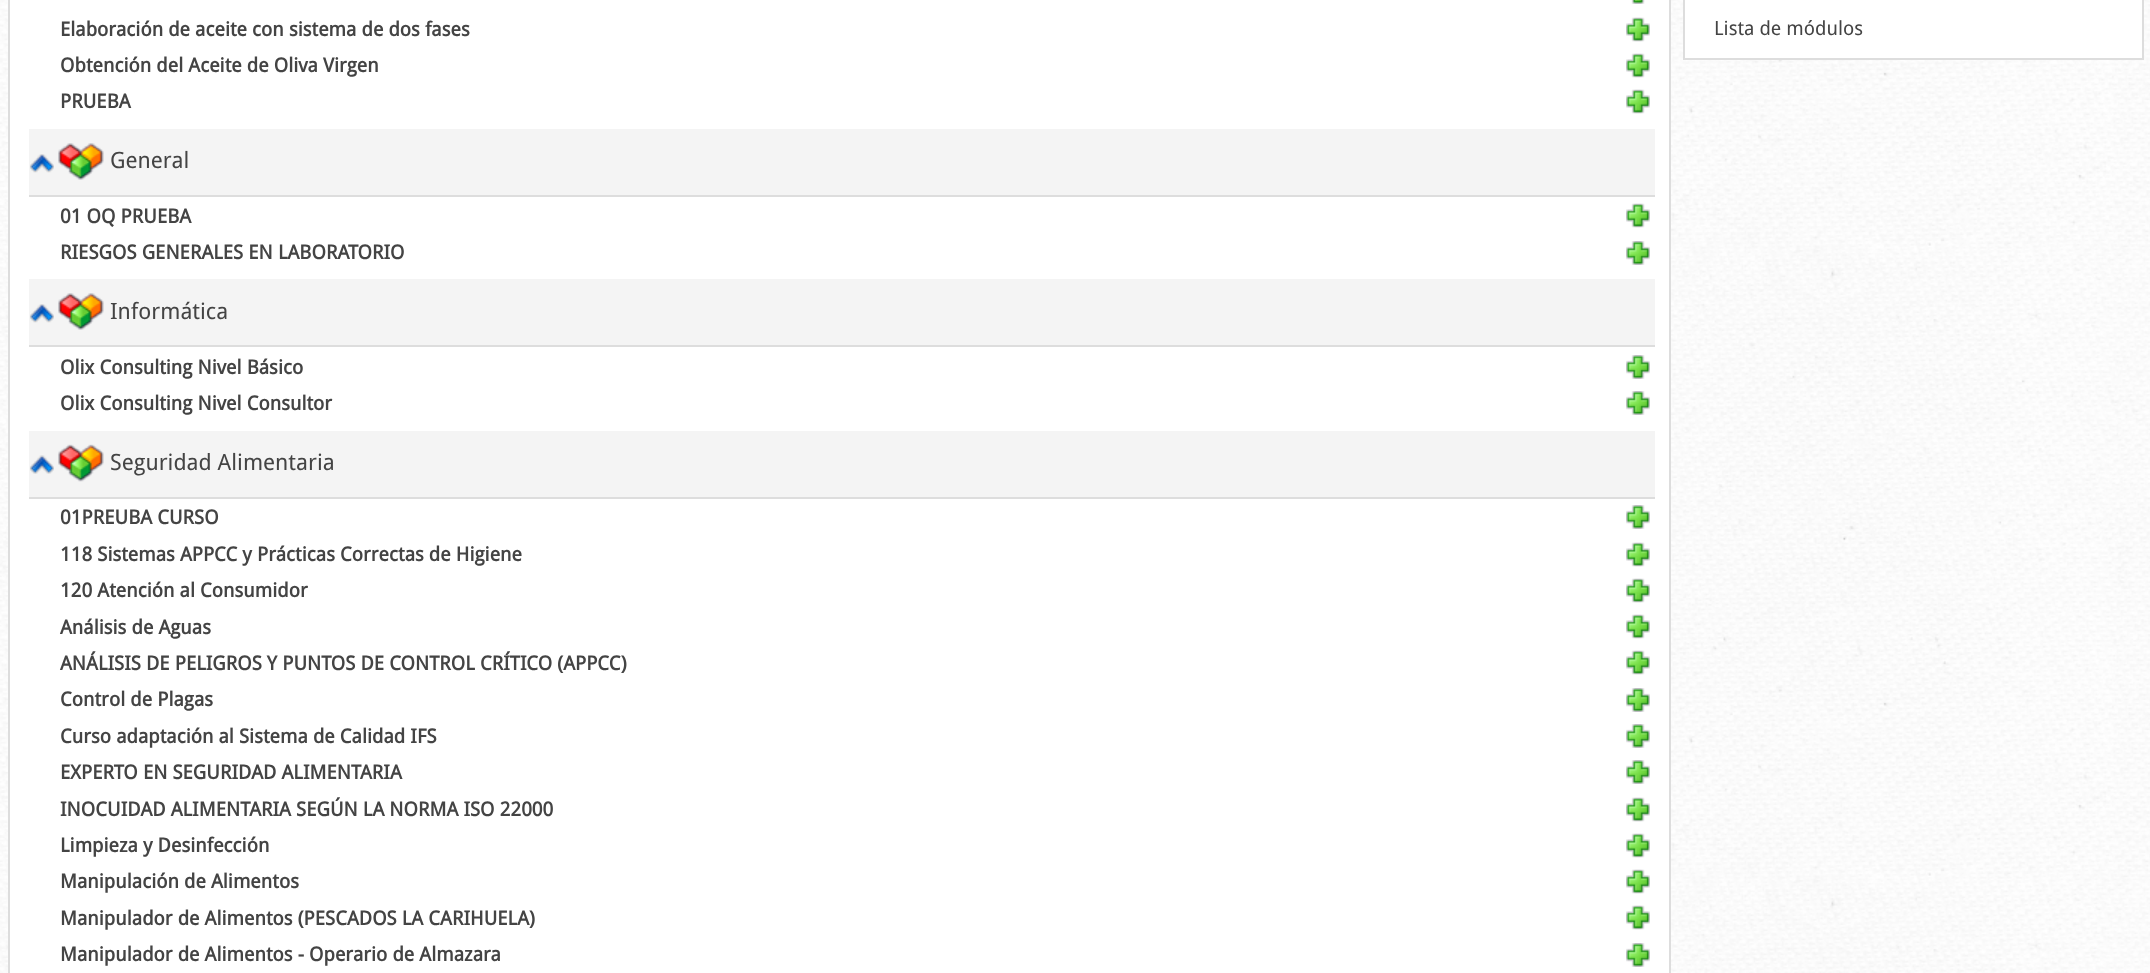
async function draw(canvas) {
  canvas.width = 2150;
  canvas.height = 973;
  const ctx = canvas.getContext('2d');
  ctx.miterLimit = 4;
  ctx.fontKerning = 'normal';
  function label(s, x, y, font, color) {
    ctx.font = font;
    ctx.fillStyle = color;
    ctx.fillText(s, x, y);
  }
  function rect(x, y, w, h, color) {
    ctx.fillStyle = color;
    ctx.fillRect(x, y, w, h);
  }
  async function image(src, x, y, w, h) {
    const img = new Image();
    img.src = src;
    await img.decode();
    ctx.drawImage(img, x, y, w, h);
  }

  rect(0, 0, 2150, 973, '#fff');
  await image('assets/img1.png', 0, 0, 2150, 973);
  ctx.beginPath();
  ctx.rect(9, -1, 1661, 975);
  ctx.fill();
  ctx.strokeStyle = '#ddd';
  ctx.lineWidth = 2;
  ctx.stroke();
  await image('assets/img2.png', 1631, 0, 14, 4);
  label('Elaboración de aceite con sistema de dos fases', 60, 36, 'bold 19.5px Droid Sans', '#444');
  await image('assets/img3.png', 1626, 17, 24, 25);
  label('Obtención del Aceite de Oliva Virgen', 60, 72, 'bold 19.5px Droid Sans', '#444');
  await image('assets/img3.png', 1626, 53, 24, 25);
  label('PRUEBA', 60, 108, 'bold 19.5px Droid Sans', '#444');
  await image('assets/img3.png', 1626, 89, 24, 25);
  rect(29, 129, 1626, 66, '#f4f4f4');
  await image('assets/img4.png', 30, 154, 24, 19);
  rect(29, 195, 1626, 2, '#ddd');
  await image('assets/img5.png', 58, 143, 46, 37);
  label('General', 110, 168, '22.5px Droid Sans', '#444');
  label('01 OQ PRUEBA', 60, 223, 'bold 19.5px Droid Sans', '#444');
  await image('assets/img3.png', 1626, 203, 24, 25);
  label('RIESGOS GENERALES EN LABORATORIO', 60, 259, 'bold 19.5px Droid Sans', '#444');
  await image('assets/img6.png', 1626, 241, 24, 24);
  rect(29, 279, 1626, 66, '#f4f4f4');
  await image('assets/img4.png', 30, 304, 24, 19);
  rect(29, 345, 1626, 2, '#ddd');
  await image('assets/img5.png', 58, 293, 46, 37);
  label('Informática', 110, 319, '22.5px Droid Sans', '#444');
  label('Olix Consulting Nivel Básico', 60, 374, 'bold 19.5px Droid Sans', '#444');
  await image('assets/img6.png', 1626, 355, 24, 24);
  label('Olix Consulting Nivel Consultor', 60, 410, 'bold 19.5px Droid Sans', '#444');
  await image('assets/img6.png', 1626, 391, 24, 24);
  rect(29, 431, 1626, 66, '#f4f4f4');
  await image('assets/img7.png', 30, 455, 24, 19);
  rect(29, 497, 1626, 2, '#ddd');
  await image('assets/img8.png', 58, 444, 46, 38);
  label('Seguridad Alimentaria', 110, 470, '22.5px Droid Sans', '#444');
  label('01PREUBA CURSO', 60, 524, 'bold 19.5px Droid Sans', '#444');
  await image('assets/img6.png', 1626, 505, 24, 24);
  label('118 Sistemas APPCC y Prácticas Correctas de Higiene', 60, 561, 'bold 19.5px Droid Sans', '#444');
  await image('assets/img3.png', 1626, 542, 24, 25);
  label('120 Atención al Consumidor', 60, 597, 'bold 19.5px Droid Sans', '#444');
  await image('assets/img3.png', 1626, 578, 24, 25);
  label('Análisis de Aguas', 60, 634, 'bold 19.5px Droid Sans', '#444');
  await image('assets/img3.png', 1626, 614, 24, 25);
  label('ANÁLISIS DE PELIGROS Y PUNTOS DE CONTROL CRÍTICO (APPCC)', 60, 670, 'bold 19.5px Droid Sans', '#444');
  await image('assets/img3.png', 1626, 650, 24, 25);
  label('Control de Plagas', 60, 706, 'bold 19.5px Droid Sans', '#444');
  await image('assets/img6.png', 1626, 688, 24, 24);
  label('Curso adaptación al Sistema de Calidad IFS', 60, 743, 'bold 19.5px Droid Sans', '#444');
  await image('assets/img6.png', 1626, 724, 24, 24);
  label('EXPERTO EN SEGURIDAD ALIMENTARIA', 60, 779, 'bold 19.5px Droid Sans', '#444');
  await image('assets/img6.png', 1626, 760, 24, 24);
  label('INOCUIDAD ALIMENTARIA SEGÚN LA NORMA ISO 22000', 60, 816, 'bold 19.5px Droid Sans', '#444');
  await image('assets/img3.png', 1626, 797, 24, 25);
  label('Limpieza y Desinfección', 60, 852, 'bold 19.5px Droid Sans', '#444');
  await image('assets/img3.png', 1626, 833, 24, 25);
  label('Manipulación de Alimentos', 60, 888, 'bold 19.5px Droid Sans', '#444');
  await image('assets/img3.png', 1626, 869, 24, 25);
  label('Manipulador de Alimentos (PESCADOS LA CARIHUELA)', 60, 925, 'bold 19.5px Droid Sans', '#444');
  await image('assets/img3.png', 1626, 905, 24, 25);
  label('Manipulador de Alimentos - Operario de Almazara', 60, 961, 'bold 19.5px Droid Sans', '#444');
  await image('assets/img6.png', 1626, 943, 24, 24);
  ctx.fillStyle = '#fff';
  ctx.beginPath();
  ctx.rect(1684, -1, 459, 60);
  ctx.fill();
  ctx.stroke();
  label('Lista de módulos', 1714, 35, '19.5px Droid Sans', '#444');
}

draw(document.querySelector('canvas'));
